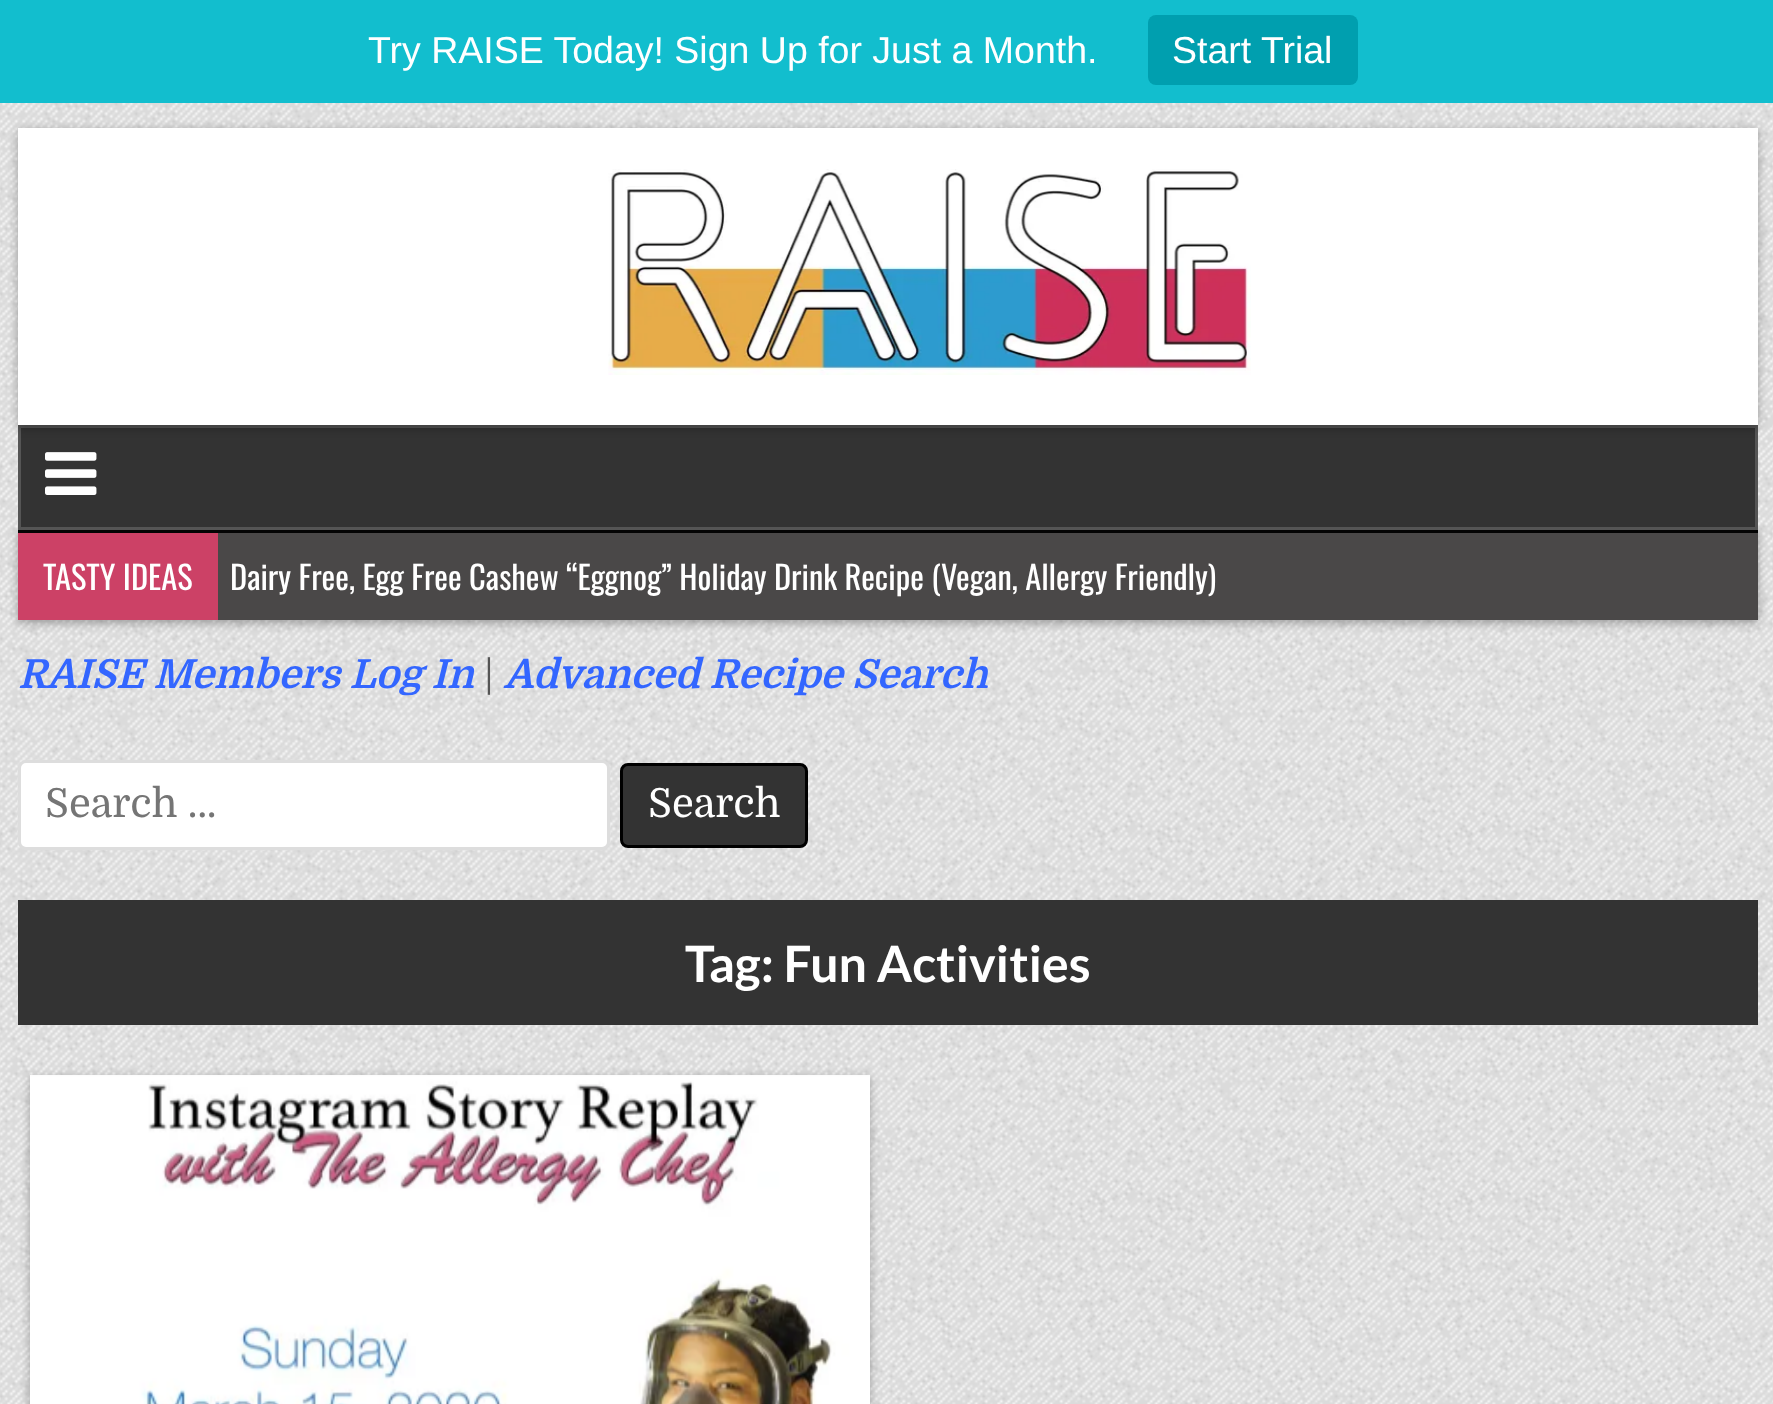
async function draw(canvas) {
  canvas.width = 1773;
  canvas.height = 1404;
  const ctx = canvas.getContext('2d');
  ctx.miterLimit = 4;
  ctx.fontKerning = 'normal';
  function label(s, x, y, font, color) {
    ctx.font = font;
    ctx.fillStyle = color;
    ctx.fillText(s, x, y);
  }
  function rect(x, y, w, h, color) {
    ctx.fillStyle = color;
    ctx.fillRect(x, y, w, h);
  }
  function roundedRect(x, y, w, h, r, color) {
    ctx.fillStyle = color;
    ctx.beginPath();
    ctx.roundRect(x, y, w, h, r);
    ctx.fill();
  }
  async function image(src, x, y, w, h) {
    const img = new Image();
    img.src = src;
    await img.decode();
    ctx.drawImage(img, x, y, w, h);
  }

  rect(0, 0, 1773, 1404, '#fff');
  await image('assets/img1.png', 0, 103, 1773, 1301);
  rect(0, 0, 1773, 103, '#12bece');
  label('Try RAISE Today! Sign Up for Just a Month.', 368, 63, '37.5px Liberation Sans', '#fff');
  roundedRect(1148, 15, 210, 70, 8, '#009faf');
  label('Start Trial', 1172, 63, '37.5px Liberation Sans', '#fff');
  ctx.fillStyle = '#0000004d';
  ctx.filter = 'blur(5px)';
  ctx.beginPath();
  ctx.rect(18, 533, 1740, 90);
  ctx.fill();
  ctx.filter = 'none';
  ctx.fillStyle = '#333';
  ctx.beginPath();
  ctx.rect(19.5, 426.5, 1737, 102);
  ctx.fill();
  ctx.strokeStyle = '#555';
  ctx.lineWidth = 3;
  ctx.stroke();
  ctx.fillStyle = '#0000004d';
  ctx.filter = 'blur(5px)';
  ctx.beginPath();
  ctx.rect(18, 130, 1740, 298);
  ctx.fill();
  ctx.filter = 'none';
  rect(18, 128, 1740, 297, '#fff');
  await image('assets/img2.png', 608, 169, 643, 206);
  await image('assets/img3.png', 45, 452, 52, 43);
  rect(218, 533, 1540, 87, '#4a4848');
  rect(18, 530, 1740, 3, '#040404');
  rect(18, 533, 200, 87, '#cc4166');
  label('TASTY IDEAS', 43, 590, '32.5px Oswald', '#fff');
  label('Dairy Free, Egg Free Cashew “Eggnog” Holiday Drink Recipe (Vegan, Allergy Friendly)', 230, 590, '32.5px Oswald', '#fff');
  label('RAISE Members Log In', 18, 688, 'italic bold 40px Domine', '#36f');
  label('|', 484, 688, '40px Domine', '#555');
  label('Advanced Recipe Search', 504, 688, 'italic bold 40px Domine', '#36f');
  ctx.fillStyle = '#fff';
  ctx.beginPath();
  ctx.roundRect(19.5, 761.5, 589, 87, 6.5);
  ctx.fill();
  ctx.strokeStyle = '#ddd';
  ctx.stroke();
  label('Search …', 45, 817, '40px Domine', '#757575');
  ctx.fillStyle = '#333';
  ctx.beginPath();
  ctx.roundRect(621.5, 764.5, 185, 82, 6.5);
  ctx.fill();
  ctx.strokeStyle = '#000';
  ctx.stroke();
  label('Search', 648, 817, '40px Domine', '#fff');
  rect(18, 900, 1740, 125, '#333');
  label('Tag: Fun Activities', 685, 982, 'bold 50px Lato', '#fff');
  ctx.fillStyle = '#0000004d';
  ctx.filter = 'blur(5px)';
  ctx.beginPath();
  ctx.rect(30, 1078, 840, 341);
  ctx.fill();
  ctx.filter = 'none';
  rect(30, 1075, 840, 2, '#f7f7f7');
  await image('assets/img4.png', 30, 1075, 840, 329);
}

draw(document.querySelector('canvas'));
